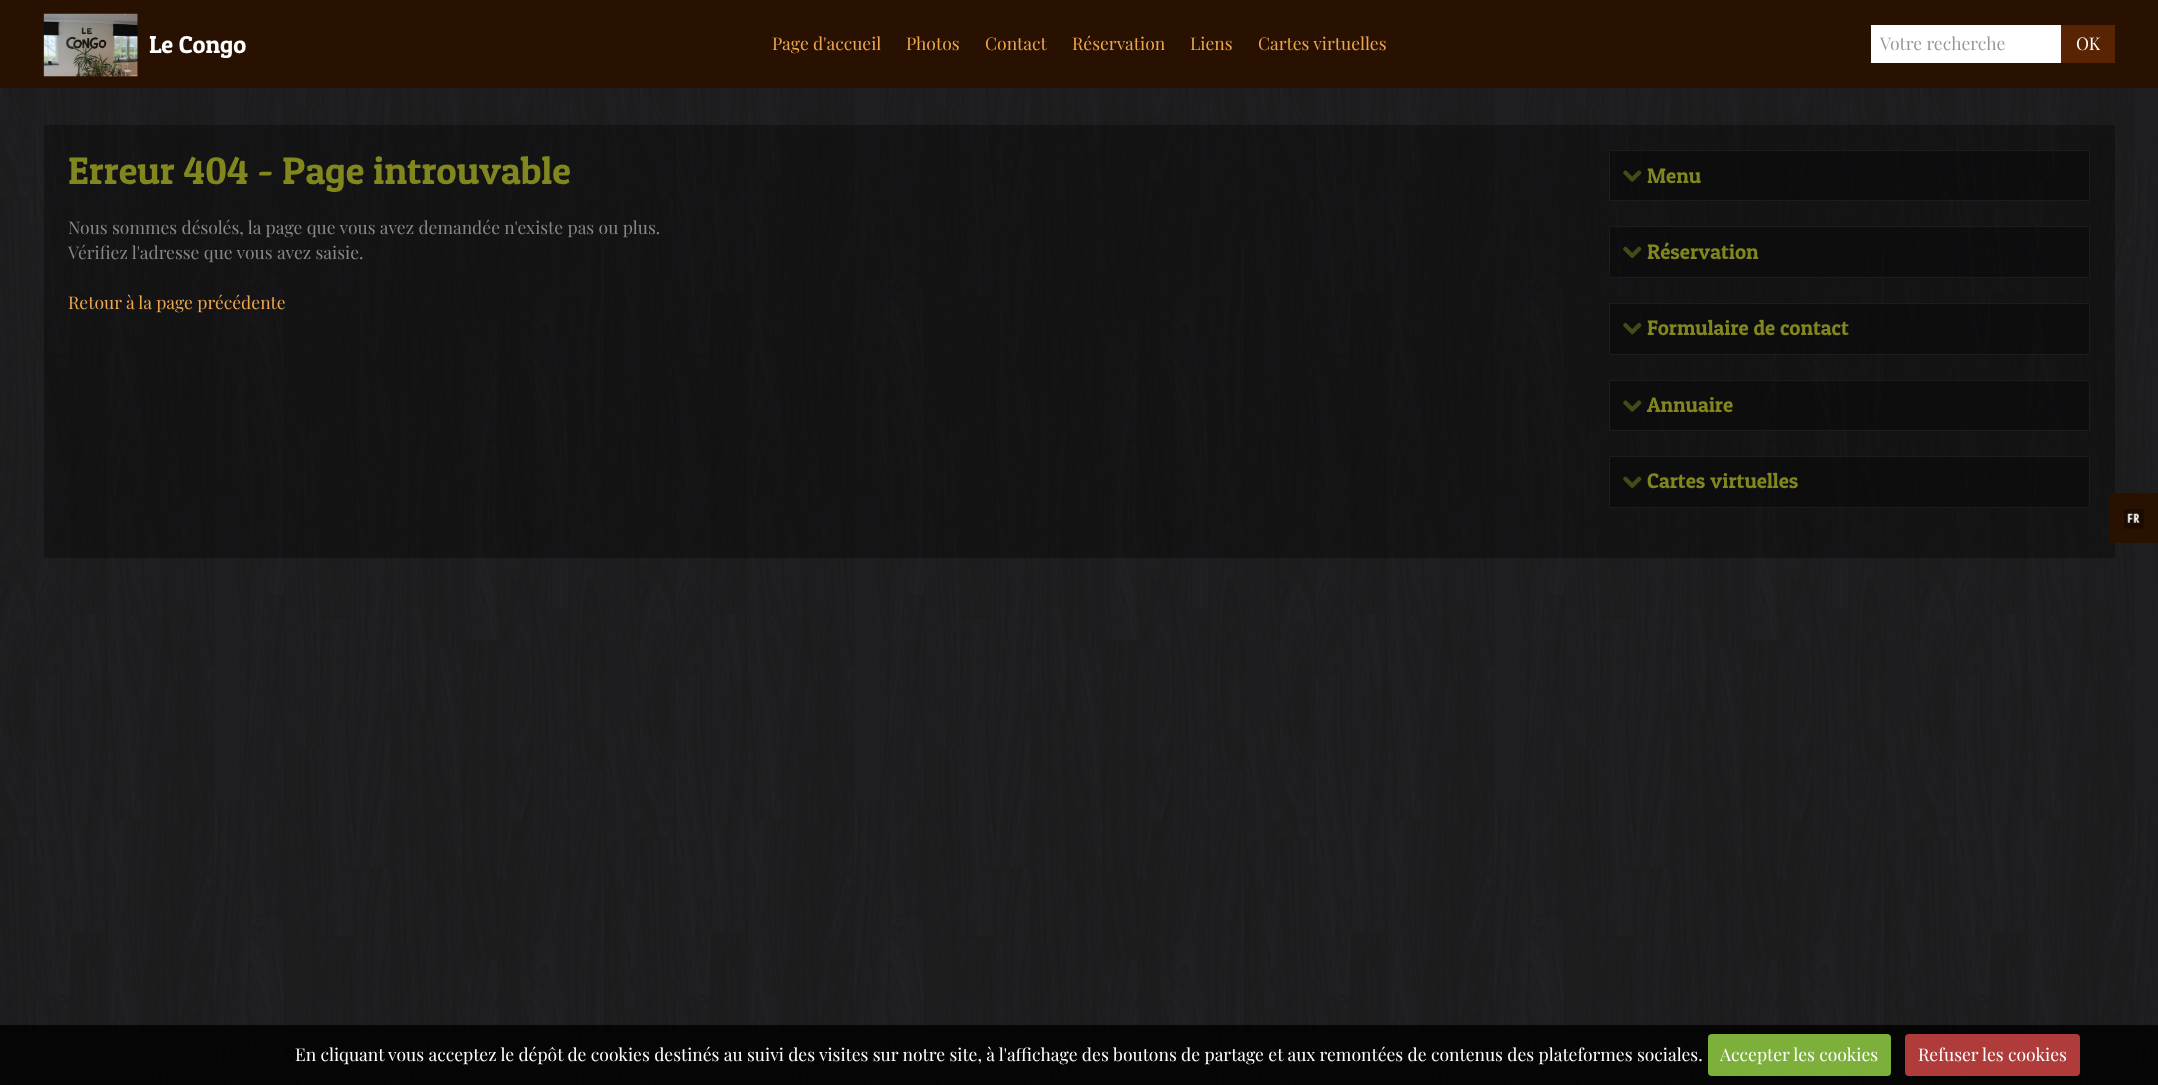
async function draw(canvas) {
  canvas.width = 2158;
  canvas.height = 1085;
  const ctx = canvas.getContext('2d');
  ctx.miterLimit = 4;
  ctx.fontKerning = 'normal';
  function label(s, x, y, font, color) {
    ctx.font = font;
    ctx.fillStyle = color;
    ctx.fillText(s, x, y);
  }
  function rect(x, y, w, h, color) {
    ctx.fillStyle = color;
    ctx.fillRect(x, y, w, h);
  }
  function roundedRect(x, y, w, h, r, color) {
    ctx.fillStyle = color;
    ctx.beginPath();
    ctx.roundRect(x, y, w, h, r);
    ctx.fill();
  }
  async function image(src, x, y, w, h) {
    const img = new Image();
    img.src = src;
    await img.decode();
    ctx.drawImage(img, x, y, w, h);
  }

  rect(0, 0, 2158, 1085, '#222224');
  await image('assets/img1.png', 0, 88, 2158, 997);
  rect(0, 0, 2158, 88, '#291101');
  await image('assets/img2.png', 43, 13, 95, 64);
  label('Le Congo', 149, 53, '24.5px Patua One', '#fff');
  label('Page d\'accueil', 772, 50, '17.5px Playfair Display', '#eda54e');
  label('Photos', 906, 50, '17.5px Playfair Display', '#eda54e');
  label('Contact', 985, 50, '17.5px Playfair Display', '#eda54e');
  label('Réservation', 1072, 50, '17.5px Playfair Display', '#eda54e');
  label('Liens', 1190, 50, '17.5px Playfair Display', '#eda54e');
  label('Cartes virtuelles', 1258, 50, '17.5px Playfair Display', '#eda54e');
  rect(1871, 25, 190, 38, '#fff');
  label('Votre recherche', 1880, 50, '17.5px Playfair Display', '#999');
  rect(2061, 25, 54, 38, '#592403');
  await image('assets/img3.png', 2061, 38, 1, 2);
  label('OK', 2076, 50, '17.5px Playfair Display', '#fff');
  rect(44, 125, 1540, 433, '#0000004d');
  rect(1584, 125, 531, 433, '#0000004d');
  label('Erreur 404 - Page introuvable', 68, 184, '38.5px Patua One', '#81861f');
  label('Nous sommes désolés, la page que vous avez demandée n\'existe pas ou plus.', 68, 234, '17.5px Playfair Display', '#878787');
  label('Vérifiez l\'adresse que vous avez saisie.', 68, 259, '17.5px Playfair Display', '#878787');
  label('Retour à la page précédente', 68, 309, '17.5px Playfair Display', '#eda54e');
  ctx.fillStyle = '#0000004d';
  ctx.beginPath();
  ctx.rect(1609.5, 150.5, 480, 50);
  ctx.fill();
  ctx.strokeStyle = '#1d1d1e';
  ctx.stroke();
  await image('assets/img4.png', 1623, 170, 19, 12);
  label('Menu', 1647, 183, '21px Patua One', '#81861f');
  ctx.fillStyle = '#0000004d';
  ctx.beginPath();
  ctx.rect(1609.5, 226.5, 480, 51);
  ctx.fill();
  ctx.stroke();
  await image('assets/img5.png', 1623, 246, 19, 13);
  label('Réservation', 1647, 259, '21px Patua One', '#81861f');
  ctx.fillStyle = '#0000004d';
  ctx.beginPath();
  ctx.rect(1609.5, 303.5, 480, 51);
  ctx.fill();
  ctx.stroke();
  await image('assets/img6.png', 1623, 322, 19, 13);
  label('Formulaire de contact', 1647, 335, '21px Patua One', '#81861f');
  ctx.fillStyle = '#0000004d';
  ctx.beginPath();
  ctx.rect(1609.5, 380.5, 480, 50);
  ctx.fill();
  ctx.stroke();
  await image('assets/img7.png', 1623, 400, 19, 12);
  label('Annuaire', 1647, 412, '21px Patua One', '#81861f');
  ctx.fillStyle = '#0000004d';
  ctx.beginPath();
  ctx.rect(1609.5, 456.5, 480, 51);
  ctx.fill();
  ctx.stroke();
  await image('assets/img8.png', 1623, 476, 19, 13);
  label('Cartes virtuelles', 1647, 488, '21px Patua One', '#81861f');
  rect(2109, 493, 49, 50, '#291101');
  await image('assets/img9.png', 2124, 509, 20, 20);
  rect(0, 1025, 2158, 60, '#000000cc');
  label('En cliquant vous acceptez le dépôt de cookies destinés au suivi des visites sur notre site, à l\'affichage des boutons de partage et aux remontées de contenus des plateformes sociales.', 295, 1061, '17.5px Playfair Display', '#fff');
  roundedRect(1708, 1034, 183, 42, 4, '#7daf3b');
  label('Accepter les cookies', 1720, 1061, '17.5px Playfair Display', '#fff');
  roundedRect(1905, 1034, 175, 42, 4, '#af3b3b');
  label('Refuser les cookies', 1918, 1061, '17.5px Playfair Display', '#fff');
}

draw(document.querySelector('canvas'));
